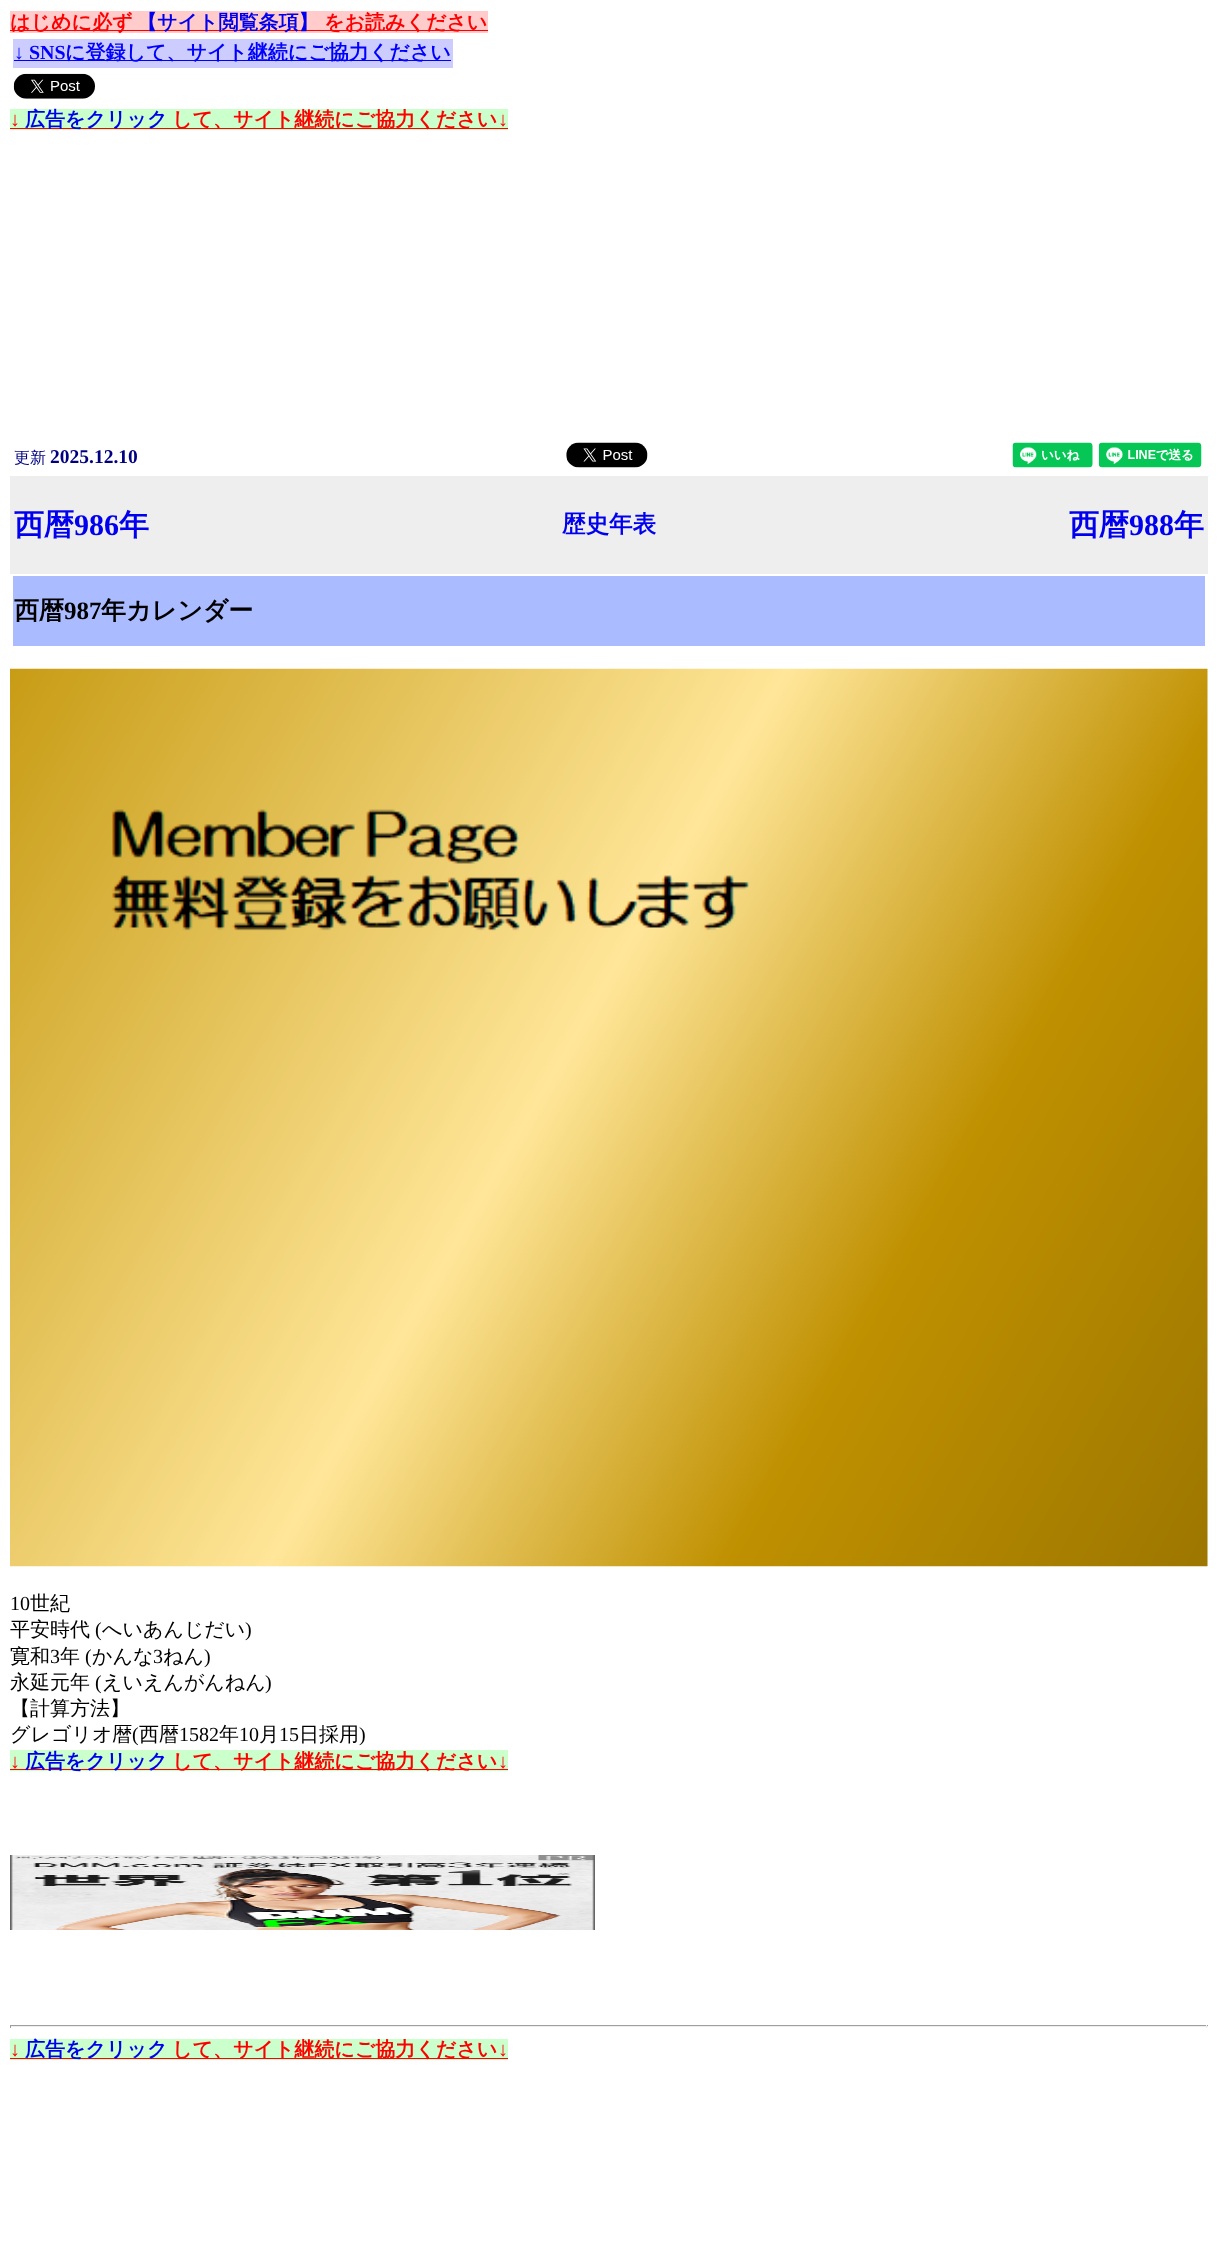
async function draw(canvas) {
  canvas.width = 1217;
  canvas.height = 2250;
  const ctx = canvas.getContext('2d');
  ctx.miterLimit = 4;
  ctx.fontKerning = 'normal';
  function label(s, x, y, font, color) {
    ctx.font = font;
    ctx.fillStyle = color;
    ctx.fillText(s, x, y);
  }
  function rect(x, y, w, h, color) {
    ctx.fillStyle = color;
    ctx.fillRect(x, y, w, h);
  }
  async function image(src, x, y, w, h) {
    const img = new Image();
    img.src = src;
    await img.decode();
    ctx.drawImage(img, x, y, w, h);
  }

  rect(0, 0, 1217, 2250, '#fff');
  rect(10, 11, 478, 22, '#ffcbcb');
  rect(10, 30, 478, 1, '#f00');
  label('はじめに必ず', 10, 29, 'bold 20px WenQuanYi Zen Hei', '#f00');
  label('【サイト閲覧条項】', 137, 29, 'bold 20px WenQuanYi Zen Hei', '#00e');
  label('をお読みください', 324, 29, 'bold 20px WenQuanYi Zen Hei', '#f00');
  rect(13, 39, 440, 29, '#ccf');
  label('↓ SNS', 14, 59, 'bold 20px Liberation Serif', '#00f');
  rect(14, 60, 437, 1, '#00f');
  label('に登録して、サイト継続にご協力ください', 65, 59, 'bold 20px WenQuanYi Zen Hei', '#00f');
  await image('assets/img1.png', 13, 73, 82, 26);
  rect(10, 109, 498, 21, '#cbffcb');
  label('↓', 10, 126, 'bold 20px Liberation Serif', '#f00');
  rect(10, 128, 498, 1, '#f00');
  label('広告をクリック', 25, 126, 'bold 20px WenQuanYi Zen Hei', '#00e');
  label('して、サイト継続にご協力ください', 172, 126, 'bold 20px WenQuanYi Zen Hei', '#f00');
  label('↓', 498, 126, 'bold 20px Liberation Serif', '#f00');
  label('更新', 14, 463, '500 16px WenQuanYi Zen Hei', '#000080');
  label('2025.12.10', 50, 463, 'bold 19.5px Liberation Serif', '#000080');
  await image('assets/img2.png', 566, 442, 82, 26);
  await image('assets/img3.png', 1012, 442, 81, 26);
  await image('assets/img4.png', 1098, 442, 104, 26);
  rect(10, 476, 1198, 98, '#eee');
  label('西暦', 14, 535, 'bold 30px WenQuanYi Zen Hei', '#00e');
  label('986', 74, 535, 'bold 30px Liberation Serif', '#00e');
  label('年', 119, 535, 'bold 30px WenQuanYi Zen Hei', '#00e');
  label('歴史年表', 562, 532, 'bold 23.5px WenQuanYi Zen Hei', '#00e');
  label('西暦', 1069, 535, 'bold 30px WenQuanYi Zen Hei', '#00e');
  label('988', 1129, 535, 'bold 30px Liberation Serif', '#00e');
  label('年', 1174, 535, 'bold 30px WenQuanYi Zen Hei', '#00e');
  rect(13, 576, 1192, 70, '#abf');
  label('西暦', 14, 619, 'bold 25px WenQuanYi Zen Hei', '#000');
  label('987', 64, 619, 'bold 25px Liberation Serif', '#000');
  label('年カレンダー', 101, 619, 'bold 25px WenQuanYi Zen Hei', '#000');
  await image('assets/img5.png', 10, 668, 1198, 899);
  label('10', 10, 1610, '20px Liberation Serif', '#000');
  label('世紀', 30, 1610, '500 20px WenQuanYi Zen Hei', '#000');
  label('平安時代', 10, 1636, '500 20px WenQuanYi Zen Hei', '#000');
  label('(', 95, 1636, '20px Liberation Serif', '#000');
  label('へいあんじだい', 102, 1636, '500 20px WenQuanYi Zen Hei', '#000');
  label(')', 245, 1636, '20px Liberation Serif', '#000');
  label('寛和', 10, 1663, '500 20px WenQuanYi Zen Hei', '#000');
  label('3', 50, 1663, '20px Liberation Serif', '#000');
  label('年', 60, 1663, '500 20px WenQuanYi Zen Hei', '#000');
  label('(', 85, 1663, '20px Liberation Serif', '#000');
  label('かんな', 92, 1663, '500 20px WenQuanYi Zen Hei', '#000');
  label('3', 153, 1663, '20px Liberation Serif', '#000');
  label('ねん', 163, 1663, '500 20px WenQuanYi Zen Hei', '#000');
  label(')', 204, 1663, '20px Liberation Serif', '#000');
  label('永延元年', 10, 1689, '500 20px WenQuanYi Zen Hei', '#000');
  label('(', 95, 1689, '20px Liberation Serif', '#000');
  label('えいえんがんねん', 102, 1689, '500 20px WenQuanYi Zen Hei', '#000');
  label(')', 265, 1689, '20px Liberation Serif', '#000');
  label('【計算方法】', 10, 1715, '500 20px WenQuanYi Zen Hei', '#000');
  label('グレゴリオ暦', 10, 1741, '500 20px WenQuanYi Zen Hei', '#000');
  label('(', 132, 1741, '20px Liberation Serif', '#000');
  label('西暦', 139, 1741, '500 20px WenQuanYi Zen Hei', '#000');
  label('1582', 179, 1741, '20px Liberation Serif', '#000');
  label('年', 219, 1741, '500 20px WenQuanYi Zen Hei', '#000');
  label('10', 239, 1741, '20px Liberation Serif', '#000');
  label('月', 259, 1741, '500 20px WenQuanYi Zen Hei', '#000');
  label('15', 279, 1741, '20px Liberation Serif', '#000');
  label('日採用', 299, 1741, '500 20px WenQuanYi Zen Hei', '#000');
  label(')', 359, 1741, '20px Liberation Serif', '#000');
  rect(10, 1750, 498, 21, '#cbffcb');
  label('↓', 10, 1768, 'bold 20px Liberation Serif', '#f00');
  rect(10, 1769, 498, 1, '#f00');
  label('広告をクリック', 25, 1768, 'bold 20px WenQuanYi Zen Hei', '#00e');
  label('して、サイト継続にご協力ください', 172, 1768, 'bold 20px WenQuanYi Zen Hei', '#f00');
  label('↓', 498, 1768, 'bold 20px Liberation Serif', '#f00');
  await image('assets/img6.png', 10, 1855, 585, 75);
  rect(10, 2025, 1198, 1, '#9f9f9f');
  rect(1206, 2025, 1, 3, '#eee');
  rect(10, 2026, 1198, 1, '#eee');
  rect(10, 2025, 1, 3, '#9f9f9f');
  rect(10, 2039, 498, 21, '#cbffcb');
  label('↓', 10, 2056, 'bold 20px Liberation Serif', '#f00');
  rect(10, 2058, 498, 1, '#f00');
  label('広告をクリック', 25, 2056, 'bold 20px WenQuanYi Zen Hei', '#00e');
  label('して、サイト継続にご協力ください', 172, 2056, 'bold 20px WenQuanYi Zen Hei', '#f00');
  label('↓', 498, 2056, 'bold 20px Liberation Serif', '#f00');
}

draw(document.querySelector('canvas'));
